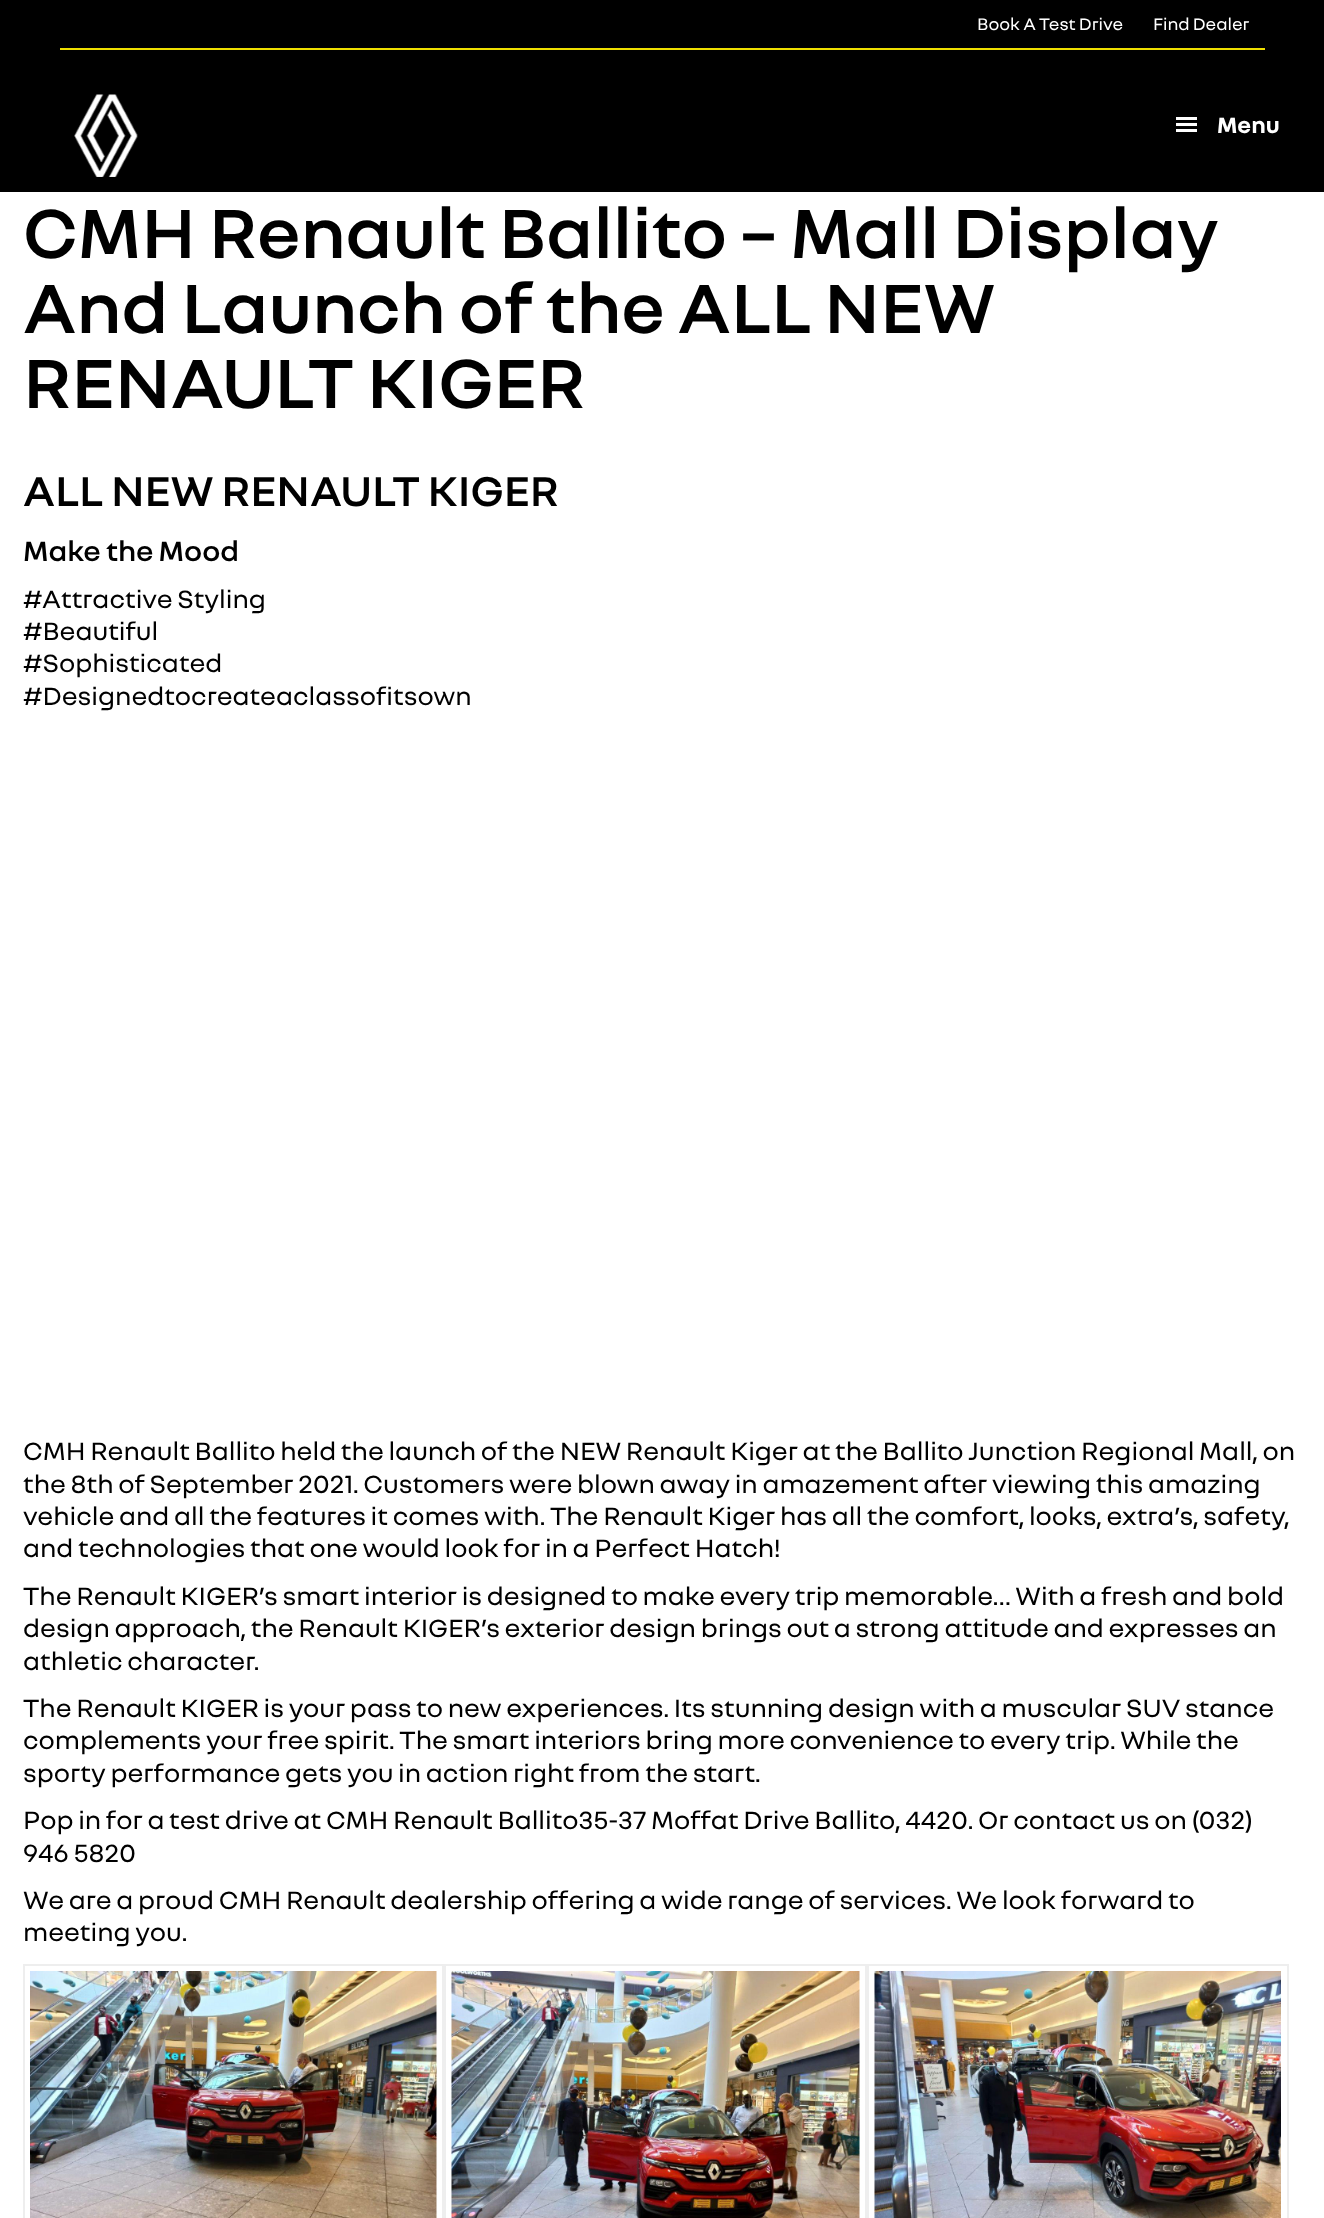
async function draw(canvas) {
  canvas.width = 1324;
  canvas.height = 2218;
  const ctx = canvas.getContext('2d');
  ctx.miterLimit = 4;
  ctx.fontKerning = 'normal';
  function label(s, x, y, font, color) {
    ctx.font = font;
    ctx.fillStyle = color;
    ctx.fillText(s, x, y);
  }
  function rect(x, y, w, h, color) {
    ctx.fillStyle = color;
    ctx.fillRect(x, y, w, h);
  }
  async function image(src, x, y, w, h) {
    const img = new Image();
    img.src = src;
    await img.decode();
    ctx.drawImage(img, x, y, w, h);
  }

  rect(0, 0, 1324, 2218, '#fff');
  rect(0, 0, 1324, 192, '#000');
  rect(60, 48, 1205, 2, '#efdf00');
  label('Book A Test Drive', 977, 30, '18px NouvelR', '#fff');
  label('Find Dealer', 1153, 30, '18px NouvelR', '#fff');
  await image('assets/img1.png', 74, 94, 64, 83);
  await image('assets/img2.png', 1176, 117, 21, 15);
  label('Menu', 1217, 133, 'bold 24px NouvelR', '#fff');
  label('CMH Renault Ballito – Mall Display', 23, 258, '600 75px NouvelR', '#000');
  label('And Launch of the ALL NEW', 23, 333, '600 75px NouvelR', '#000');
  label('RENAULT KIGER', 23, 408, '600 75px NouvelR', '#000');
  label('ALL NEW RENAULT KIGER', 23, 506, '600 45px NouvelR', '#000');
  label('Make the Mood', 23, 561, '600 30px NouvelR', '#000');
  label('#Attractive Styling', 23, 608, '27px NouvelR', '#000');
  label('#Beautiful', 23, 640, '27px NouvelR', '#000');
  label('#Sophisticated', 23, 672, '27px NouvelR', '#000');
  label('#Designedtocreateaclassofitsown', 23, 705, '27px NouvelR', '#000');
  label('CMH Renault Ballito held the launch of the NEW Renault Kiger at the Ballito Junction Regional Mall, on', 23, 1460, '27px NouvelR', '#000');
  label('the 8th of September 2021. Customers were blown away in amazement after viewing this amazing', 23, 1493, '27px NouvelR', '#000');
  label('vehicle and all the features it comes with. The Renault Kiger has all the comfort, looks, extra’s, safety,', 23, 1525, '27px NouvelR', '#000');
  label('and technologies that one would look for in a Perfect Hatch!', 23, 1557, '27px NouvelR', '#000');
  label('The Renault KIGER’s smart interior is designed to make every trip memorable… With a fresh and bold', 23, 1605, '27px NouvelR', '#000');
  label('design approach, the Renault KIGER’s exterior design brings out a strong attitude and expresses an', 23, 1637, '27px NouvelR', '#000');
  label('athletic character.', 23, 1670, '27px NouvelR', '#000');
  label('The Renault KIGER is your pass to new experiences. Its stunning design with a muscular SUV stance', 23, 1717, '27px NouvelR', '#000');
  label('complements your free spirit. The smart interiors bring more convenience to every trip. While the', 23, 1749, '27px NouvelR', '#000');
  label('sporty performance gets you in action right from the start.', 23, 1782, '27px NouvelR', '#000');
  label('Pop in for a test drive at CMH Renault Ballito35-37 Moffat Drive Ballito, 4420. Or contact us on (032)', 23, 1829, '27px NouvelR', '#000');
  label('946 5820', 23, 1862, '27px NouvelR', '#000');
  label('We are a proud CMH Renault dealership offering a wide range of services. We look forward to', 23, 1909, '27px NouvelR', '#000');
  label('meeting you.', 23, 1941, '27px NouvelR', '#000');
  ctx.strokeStyle = '#eee';
  ctx.lineWidth = 2;
  ctx.strokeRect(24, 1965, 419, 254);
  await image('assets/img3.png', 30, 1971, 407, 247);
  ctx.strokeRect(445, 1965, 421, 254);
  await image('assets/img4.png', 451, 1971, 409, 247);
  ctx.strokeRect(868, 1965, 420, 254);
  await image('assets/img5.png', 874, 1971, 407, 247);
}

draw(document.querySelector('canvas'));
